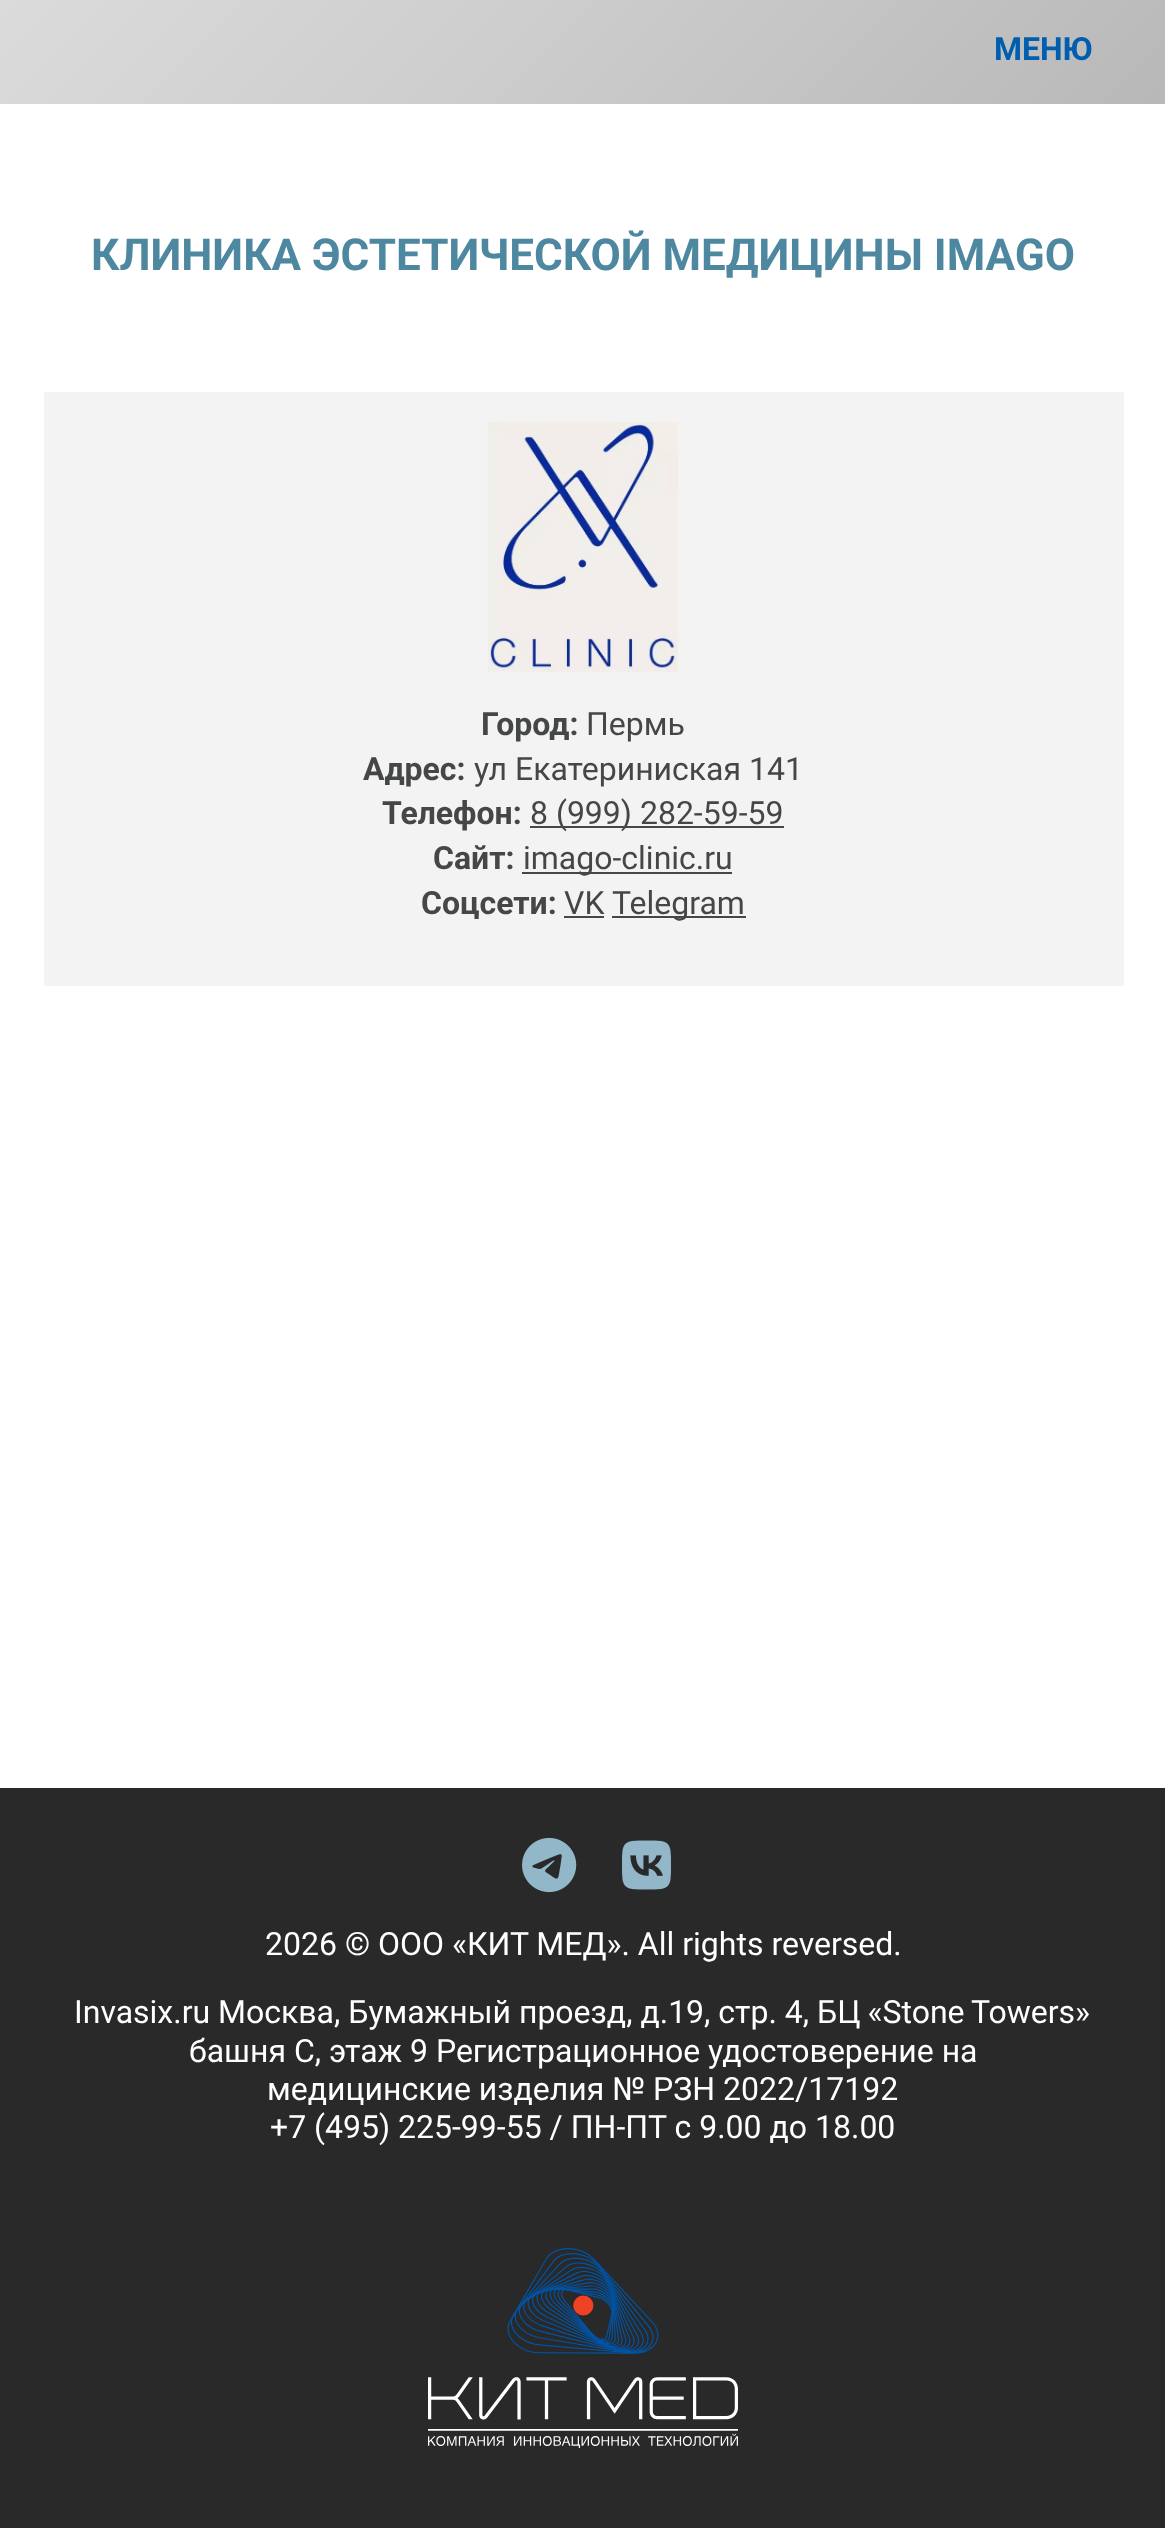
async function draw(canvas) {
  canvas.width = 1165;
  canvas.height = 2528;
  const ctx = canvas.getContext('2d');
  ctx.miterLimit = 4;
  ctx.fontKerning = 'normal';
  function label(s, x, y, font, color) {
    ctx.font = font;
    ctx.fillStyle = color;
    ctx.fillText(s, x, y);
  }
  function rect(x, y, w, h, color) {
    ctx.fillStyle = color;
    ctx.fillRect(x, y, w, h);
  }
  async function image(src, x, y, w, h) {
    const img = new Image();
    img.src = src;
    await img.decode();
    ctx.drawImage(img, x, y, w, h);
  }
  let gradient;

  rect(0, 0, 1165, 2528, '#fff');
  gradient = ctx.createLinearGradient(265, -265, 901, 370);
  gradient.addColorStop(0, '#dbdbdb');
  gradient.addColorStop(0.47, '#ccc');
  gradient.addColorStop(1, '#b8b8b8');
  ctx.fillStyle = gradient;
  ctx.fillRect(0, 0, 1165, 104);
  label('МЕНЮ', 994, 60, 'bold 32px Roboto', '#015eaf');
  label('КЛИНИКА ЭСТЕТИЧЕСКОЙ МЕДИЦИНЫ IMAGO', 91, 270, 'bold 44px Roboto', '#4e88a0');
  rect(44, 392, 1080, 594, '#f3f3f3');
  await image('assets/img1.png', 488, 422, 190, 250);
  label('Город:', 481, 735, 'bold 32px Roboto', '#454747');
  label('Пермь', 586, 735, '32px Roboto', '#454747');
  label('Адрес:', 363, 780, 'bold 32px Roboto', '#454747');
  label('ул Екатериниская 141', 474, 780, '32px Roboto', '#454747');
  label('Телефон:', 382, 824, 'bold 32px Roboto', '#454747');
  rect(530, 826, 254, 2, '#454747');
  label('8 (999) 282-59-59', 530, 824, '32px Roboto', '#454747');
  label('Сайт:', 433, 869, 'bold 32px Roboto', '#454747');
  rect(522, 872, 210, 2, '#454747');
  label('imago-clinic.ru', 523, 869, '32px Roboto', '#454747');
  label('Соцсети:', 421, 914, 'bold 32px Roboto', '#454747');
  label('VK', 564, 914, '32px Roboto', '#454747');
  rect(564, 916, 40, 2, '#454747');
  rect(612, 916, 134, 2, '#454747');
  label('Telegram', 612, 914, '32px Roboto', '#454747');
  rect(0, 1788, 1165, 740, '#292929');
  await image('assets/img2.png', 522, 1837, 55, 56);
  await image('assets/img3.png', 622, 1840, 49, 50);
  label('2026 © ООО «КИТ МЕД». All rights reversed.', 265, 1955, '32px Roboto', '#fff');
  label('Invasix.ru Москва, Бумажный проезд, д.19, стр. 4,', 74, 2023, '32px Roboto', '#fff');
  ctx.wordSpacing = '-1px';
  label('БЦ «Stone Towers»', 817, 2023, '32px Roboto', '#fff');
  ctx.wordSpacing = '0px';
  label('башня C, этаж 9 Регистрационное удостоверение на', 189, 2062, '32px Roboto', '#fff');
  label('медицинские изделия № РЗН 2022/17192', 267, 2100, '32px Roboto', '#fff');
  label('+7 (495) 225-99-55 / ПН-ПТ с 9.00 до 18.00', 270, 2138, '32px Roboto', '#fff');
  await image('assets/img4.png', 428, 2248, 310, 200);
}

draw(document.querySelector('canvas'));
